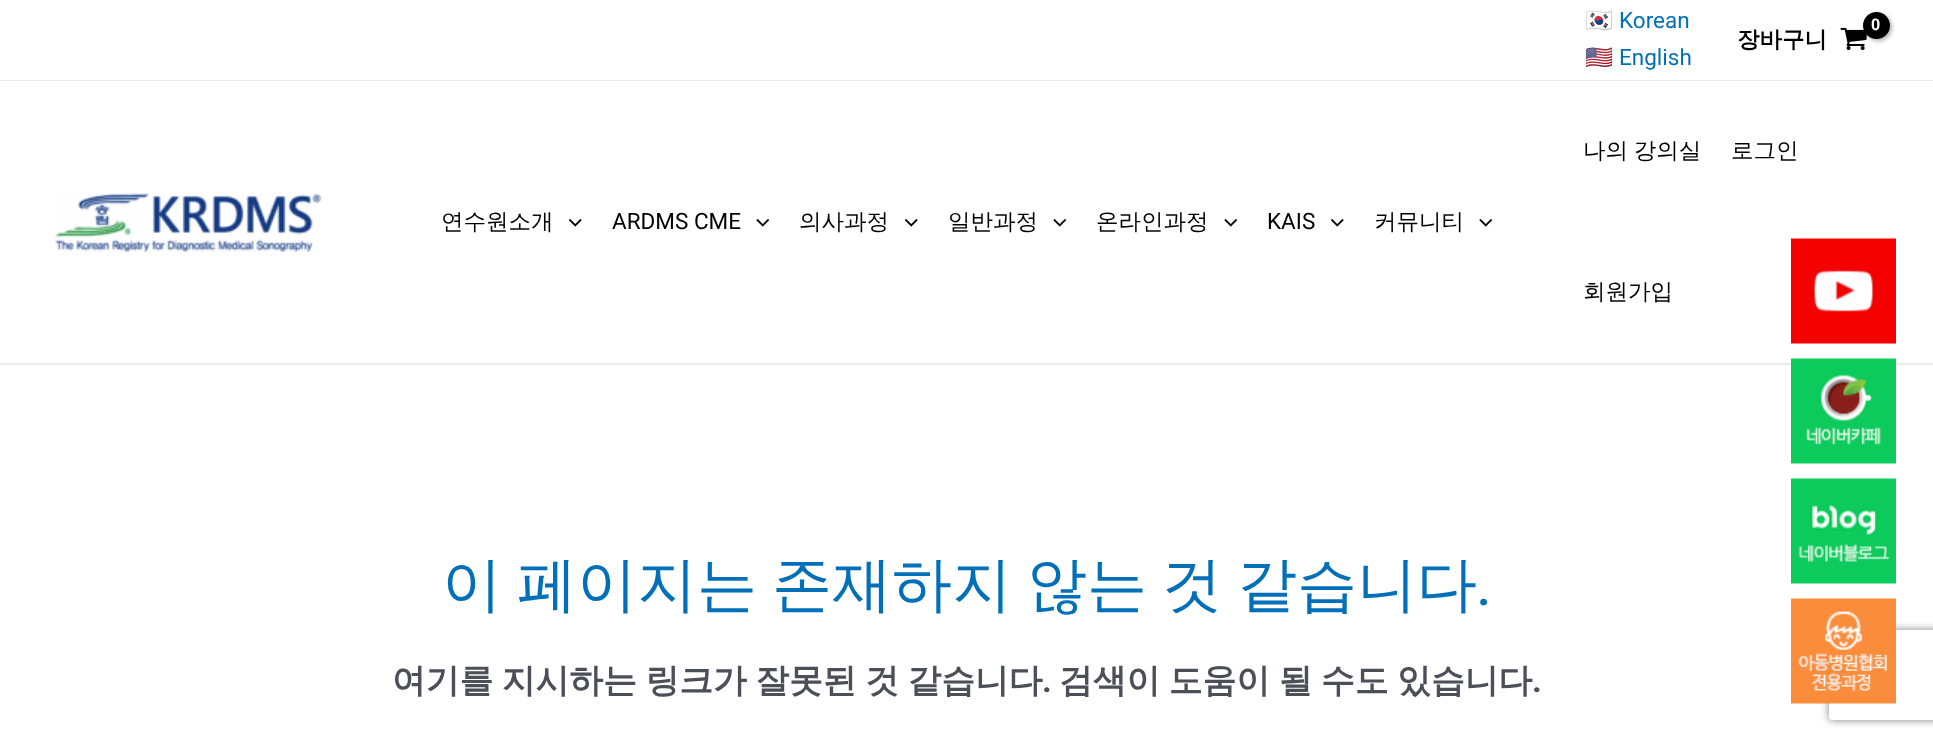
async function draw(canvas) {
  canvas.width = 1933;
  canvas.height = 740;
  const ctx = canvas.getContext('2d');
  ctx.miterLimit = 4;
  ctx.fontKerning = 'normal';
  function label(s, x, y, font, color) {
    ctx.font = font;
    ctx.fillStyle = color;
    ctx.fillText(s, x, y);
  }
  function rect(x, y, w, h, color) {
    ctx.fillStyle = color;
    ctx.fillRect(x, y, w, h);
  }
  async function image(src, x, y, w, h) {
    const img = new Image();
    img.src = src;
    await img.decode();
    ctx.drawImage(img, x, y, w, h);
  }
  let path;

  rect(0, 0, 1933, 740, '#fff');
  rect(0, 80, 1933, 1, '#eaeaea');
  label('🇰🇷', 1585, 28, '22.5px Noto Color Emoji', '#0170b9');
  label('Korean', 1619, 28, '22.5px Roboto', '#0170b9');
  label('🇺🇸', 1585, 65, '22.5px Noto Color Emoji', '#0170b9');
  label('English', 1619, 65, '22.5px Roboto', '#0170b9');
  await image('assets/img1.png', 1840, 27, 27, 23);
  ctx.fillStyle = '#0000004d';
  ctx.filter = 'blur(2px)';
  ctx.beginPath();
  ctx.roundRect(1865, 14, 27, 27, 13.5);
  ctx.fill();
  ctx.filter = 'none';
  ctx.fillStyle = '#000';
  ctx.beginPath();
  ctx.arc(1876.5, 25.5, 13.5, 0, 2 * Math.PI);
  ctx.fill();
  ctx.letterSpacing = '-1px';
  label('0', 1871, 30, 'bold 16px Roboto', '#fff');
  ctx.letterSpacing = '0px';
  label('장바구니', 1737, 47, 'bold 22.5px WenQuanYi Zen Hei', '#000');
  rect(0, 363, 1933, 2, '#eaeaea');
  await image('assets/img2.png', 55, 193, 267, 59);
  label('연수원소개', 441, 229, '500 22.5px WenQuanYi Zen Hei', '#000');
  await image('assets/img3.png', 569, 219, 13, 8);
  label('ARDMS CME', 612, 229, '22.5px Roboto', '#000');
  await image('assets/img4.png', 756, 219, 14, 8);
  label('의사과정', 799, 229, '500 22.5px WenQuanYi Zen Hei', '#000');
  await image('assets/img3.png', 905, 219, 13, 8);
  label('일반과정', 948, 229, '500 22.5px WenQuanYi Zen Hei', '#000');
  await image('assets/img4.png', 1053, 219, 14, 8);
  label('온라인과정', 1096, 229, '500 22.5px WenQuanYi Zen Hei', '#000');
  await image('assets/img4.png', 1224, 219, 14, 8);
  label('KAIS', 1267, 229, '22.5px Roboto', '#000');
  await image('assets/img3.png', 1331, 219, 13, 8);
  label('커뮤니티', 1374, 229, '500 22.5px WenQuanYi Zen Hei', '#000');
  await image('assets/img4.png', 1479, 219, 14, 8);
  ctx.wordSpacing = '-1px';
  label('나의 강의실', 1583, 158, '500 22.5px WenQuanYi Zen Hei', '#000');
  ctx.wordSpacing = '0px';
  label('로그인', 1731, 158, '500 22.5px WenQuanYi Zen Hei', '#000');
  label('회원가입', 1583, 299, '500 22.5px WenQuanYi Zen Hei', '#000');
  ctx.wordSpacing = '-3px';
  label('이 페이지는 존재하지 않는 것 같습니다', 442, 605, '500 60px WenQuanYi Zen Hei', '#0170b9');
  ctx.wordSpacing = '0px';
  label('.', 1476, 605, '60px Roboto', '#0170b9');
  ctx.wordSpacing = '-1.5px';
  label('여기를 지시하는 링크가 잘못된 것 같습니다', 392, 692, 'bold 33.75px WenQuanYi Zen Hei', '#4b4f58');
  ctx.wordSpacing = '0px';
  label('.', 1042, 692, 'bold 33.75px Roboto', '#4b4f58');
  ctx.wordSpacing = '-1.5px';
  label('검색이 도움이 될 수도 있습니다', 1059, 692, 'bold 33.75px WenQuanYi Zen Hei', '#4b4f58');
  ctx.wordSpacing = '0px';
  label('.', 1532, 692, 'bold 33.75px Roboto', '#4b4f58');
  await image('assets/img5.png', 1791, 238, 105, 106);
  await image('assets/img6.png', 1791, 358, 105, 106);
  await image('assets/img7.png', 1791, 478, 105, 106);
  ctx.save();
  path = new Path2D('M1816 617H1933V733H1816ZM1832 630H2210C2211.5 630 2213 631.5 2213 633V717C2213 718.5 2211.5 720 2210 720H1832C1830.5 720 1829 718.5 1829 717V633C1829 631.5 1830.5 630 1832 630Z');
  ctx.clip(path, 'evenodd');
  ctx.fillStyle = '#808080';
  ctx.filter = 'blur(4px)';
  ctx.beginPath();
  ctx.roundRect(1829, 630, 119, 90, 3);
  ctx.fill();
  ctx.filter = 'none';
  ctx.restore();
  await image('assets/img8.png', 1791, 598, 105, 106);
}

draw(document.querySelector('canvas'));
